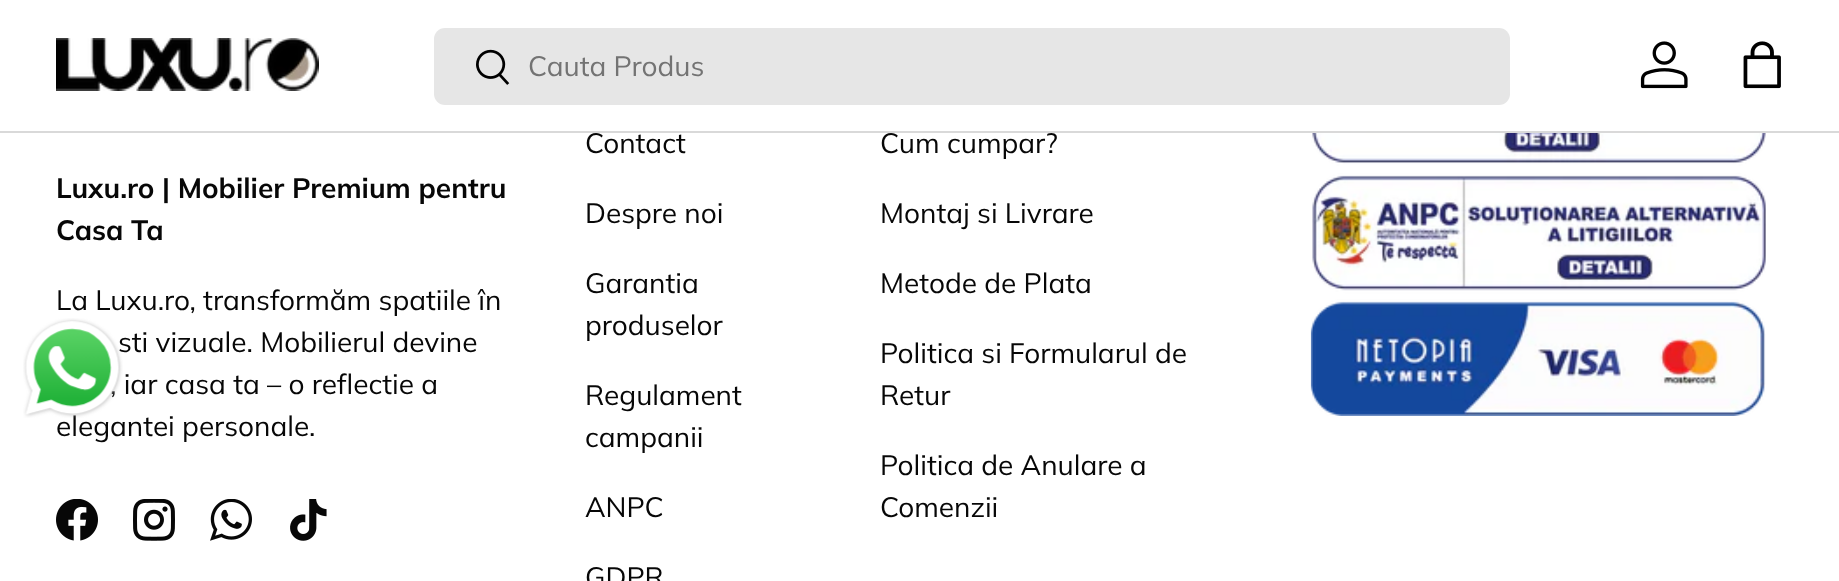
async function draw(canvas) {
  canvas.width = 1839;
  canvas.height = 581;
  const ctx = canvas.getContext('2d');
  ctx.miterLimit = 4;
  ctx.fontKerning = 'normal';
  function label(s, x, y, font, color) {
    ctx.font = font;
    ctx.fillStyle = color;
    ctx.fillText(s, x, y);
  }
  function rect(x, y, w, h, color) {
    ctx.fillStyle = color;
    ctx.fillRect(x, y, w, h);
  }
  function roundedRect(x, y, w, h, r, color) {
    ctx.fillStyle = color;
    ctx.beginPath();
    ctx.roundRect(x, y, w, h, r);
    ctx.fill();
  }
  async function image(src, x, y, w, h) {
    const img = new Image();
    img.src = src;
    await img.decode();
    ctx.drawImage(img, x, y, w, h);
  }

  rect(0, 0, 1839, 581, '#fff');
  rect(0, 131, 1839, 2, '#d9d9d9');
  await image('assets/img1.png', 56, 38, 263, 53);
  roundedRect(434, 28, 1076, 77, 11, '#e6e6e6');
  await image('assets/img2.png', 476, 49, 34, 36);
  label('Cauta Produs', 528, 76, '28px Muli', '#737373');
  await image('assets/img3.png', 1640, 41, 48, 48);
  await image('assets/img4.png', 1743, 41, 38, 48);
  label('Luxu.ro | Mobilier Premium pentru', 56, 198, 'bold 28px Muli', '#070707');
  label('Casa Ta', 56, 240, 'bold 28px Muli', '#070707');
  label('La Luxu.ro, transformăm spatiile în', 56, 310, '28px Muli', '#070707');
  label('sti vizuale. Mobilierul devine', 118, 352, '28px Muli', '#070707');
  label(', iar casa ta – o reflectie a', 110, 394, '28px Muli', '#070707');
  label('elegantei personale.', 56, 436, '28px Muli', '#070707');
  await image('assets/img5.png', 56, 499, 42, 42);
  await image('assets/img6.png', 133, 499, 42, 42);
  await image('assets/img7.png', 210, 499, 42, 42);
  await image('assets/img8.png', 290, 499, 37, 42);
  label('Contact', 585, 153, '28px Muli', '#070707');
  label('Despre noi', 585, 223, '28px Muli', '#070707');
  label('Garantia', 585, 293, '28px Muli', '#070707');
  label('produselor', 585, 335, '28px Muli', '#070707');
  label('Regulament', 585, 405, '28px Muli', '#070707');
  label('campanii', 585, 447, '28px Muli', '#070707');
  label('ANPC', 585, 517, '28px Muli', '#070707');
  label('GDPR', 585, 587, '28px Muli', '#070707');
  label('Cum cumpar?', 880, 153, '28px Muli', '#070707');
  label('Montaj si Livrare', 880, 223, '28px Muli', '#070707');
  label('Metode de Plata', 880, 293, '28px Muli', '#070707');
  label('Politica si Formularul de', 880, 363, '28px Muli', '#070707');
  label('Retur', 880, 405, '28px Muli', '#070707');
  label('Politica de Anulare a', 880, 475, '28px Muli', '#070707');
  label('Comenzii', 880, 517, '28px Muli', '#070707');
  await image('assets/img9.png', 1310, 133, 456, 283);
  await image('assets/img10.png', 23, 318, 100, 100);
}

draw(document.querySelector('canvas'));
